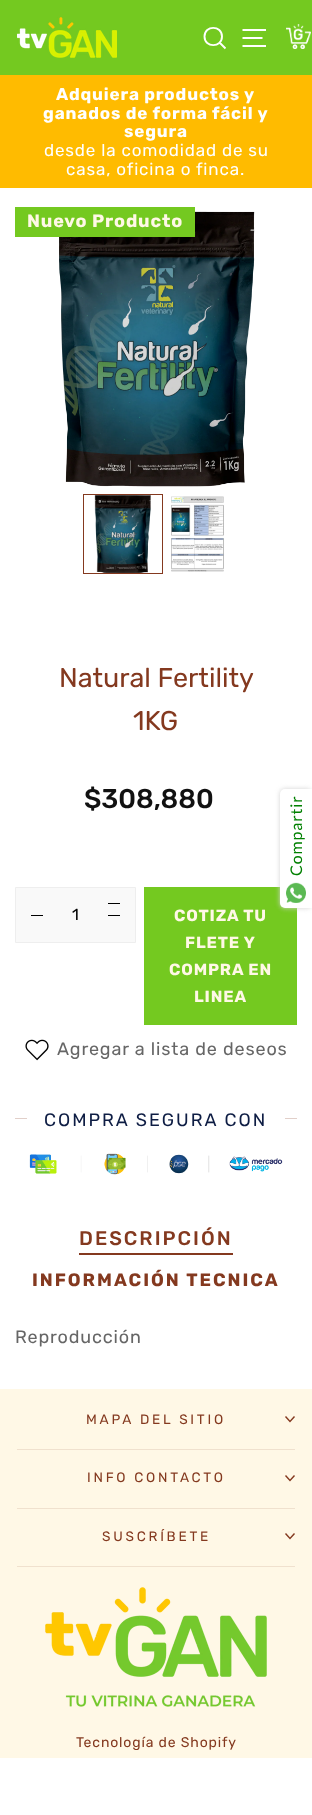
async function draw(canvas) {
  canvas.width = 312;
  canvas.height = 1815;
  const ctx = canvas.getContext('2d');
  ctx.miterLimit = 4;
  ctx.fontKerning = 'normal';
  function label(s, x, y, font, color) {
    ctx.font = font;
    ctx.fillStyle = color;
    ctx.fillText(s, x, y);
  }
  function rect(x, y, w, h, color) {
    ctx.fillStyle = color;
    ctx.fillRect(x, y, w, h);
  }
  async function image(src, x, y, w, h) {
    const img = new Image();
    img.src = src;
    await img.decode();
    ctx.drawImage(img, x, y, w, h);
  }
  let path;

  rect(0, 0, 312, 1815, '#fff');
  rect(0, 0, 312, 75, '#74c920');
  await image('assets/img1.png', 17, 17, 100, 41);
  path = new Path2D('M222 36.5C222 48 204.5 48 204.5 36.5C204.5 25 222 25 222 36.5ZM225.5 48.5L219.5 42.5M242.5 30H266M242.5 38H262.5M242.5 46H266');
  ctx.strokeStyle = '#fff';
  ctx.lineWidth = 1.9;
  ctx.stroke(path);
  await image('assets/img2.png', 286, 24, 25, 25);
  rect(0, 75, 312, 113, '#fb0');
  ctx.letterSpacing = '0.85px';
  label('Adquiera productos y', 56, 100, 'bold 17px Rubik', '#fff');
  label('ganados de forma fácil y', 43, 119, 'bold 17px Rubik', '#fff');
  label('segura', 124, 137, 'bold 17px Rubik', '#fff');
  label('desde la comodidad de su', 44, 156, '300 17px Rubik', '#fff');
  label('casa, oficina o finca.', 66, 175, '300 17px Rubik', '#fff');
  await image('assets/img3.png', 59, 211, 196, 276);
  rect(15, 207, 180, 30, '#74c920');
  label('Nuevo Producto', 27, 227, 'bold 18px Rubik', '#fff8e6');
  await image('assets/img4.png', 94, 495, 57, 78);
  ctx.strokeStyle = '#84391f';
  ctx.lineWidth = 1;
  ctx.strokeRect(83.5, 494.5, 79, 79);
  await image('assets/img5.png', 171, 496, 53, 76);
  ctx.letterSpacing = '0px';
  label('Natural Fertility', 59, 687, '300 27px Rubik', '#84391f');
  label('1KG', 133, 730, '300 27px Rubik', '#84391f');
  label('$308,880', 84, 808, '500 27px Rubik', '#111');
  ctx.fillStyle = '#f9f9f9';
  ctx.beginPath();
  ctx.rect(15.5, 887.5, 120, 55);
  ctx.fill();
  ctx.strokeStyle = '#eee';
  ctx.stroke();
  rect(31, 915, 12, 1, '#000');
  label('1', 72, 920, '300 16px Rubik', '#000');
  rect(108, 903, 12, 1, '#000');
  rect(108, 915, 12, 1, '#000');
  rect(144, 887, 153, 138, '#74c920');
  ctx.letterSpacing = '0.85px';
  label('COTIZA TU', 174, 921, 'bold 16.25px Rubik', '#fff8e6');
  label('FLETE Y', 185, 948, 'bold 16.25px Rubik', '#fff8e6');
  label('COMPRA EN', 169, 975, 'bold 16.25px Rubik', '#fff8e6');
  label('LINEA', 194, 1002, 'bold 16.25px Rubik', '#fff8e6');
  await image('assets/img6.png', 25, 1039, 24, 22);
  label('Agregar a lista de deseos', 57, 1055, '300 18px Rubik', '#666');
  rect(15, 1118, 282, 1, '#e1cfc9');
  rect(27, 1118, 258, 1, '#fff');
  ctx.letterSpacing = '2px';
  label('COMPRA SEGURA CON', 44, 1126, '300 18px Rubik', '#0e1d44');
  await image('assets/img7.png', 29, 1153, 254, 22);
  label('DESCRIPCIÓN', 79, 1245, '500 19.75px Rubik', '#84391f');
  rect(79, 1253, 154, 2, '#84391f');
  label('INFORMACIÓN TECNICA', 32, 1286, 'bold 18px Rubik', '#84391f');
  ctx.letterSpacing = '0.85px';
  label('Reproducción', 15, 1343, '300 18px Rubik', '#666');
  rect(0, 1389, 312, 369, '#fff8e6');
  ctx.letterSpacing = '2.75px';
  label('MAPA DEL SITIO', 86, 1424, '300 13.6px Rubik', '#84391f');
  path = new Path2D('M285.5 1416.5L290 1421.5L294.5 1416.5');
  ctx.strokeStyle = '#84391f';
  ctx.lineWidth = 1.4;
  ctx.stroke(path);
  rect(17, 1449, 278, 1, '#f0e1ce');
  label('INFO CONTACTO', 87, 1482, '300 13.6px Rubik', '#84391f');
  path = new Path2D('M285.5 1475.5L290 1480.5L294.5 1475.5');
  ctx.stroke(path);
  rect(17, 1508, 278, 1, '#f0e1ce');
  label('SUSCRÍBETE', 102, 1541, '300 13.6px Rubik', '#84391f');
  path = new Path2D('M285.5 1533.5L290 1538.5L294.5 1533.5');
  ctx.stroke(path);
  rect(17, 1566, 278, 1, '#f0e1ce');
  await image('assets/img8.png', 45, 1587, 222, 120);
  ctx.letterSpacing = '0.85px';
  label('Tecnología de Shopify', 76, 1747, '300 14px Rubik', '#84391f');
  ctx.fillStyle = '#d3d3d3';
  ctx.filter = 'blur(2.5px)';
  ctx.beginPath();
  ctx.roundRect(280, 789, 32, 119, 5);
  ctx.fill();
  ctx.filter = 'none';
  ctx.fillStyle = '#fff';
  ctx.beginPath();
  ctx.roundRect(280, 789, 32, 119, [5, 0, 0, 5]);
  ctx.fill();
  ctx.font = '16px Lato';
  ctx.fillStyle = '#008000';
  ctx.save();
  ctx.translate(302, 876);
  ctx.rotate(-90 * Math.PI / 180);
  ctx.fillText('Compartir', 0, 0);
  ctx.restore();
  await image('assets/img9.png', 286, 882, 20, 21);
}

draw(document.querySelector('canvas'));
